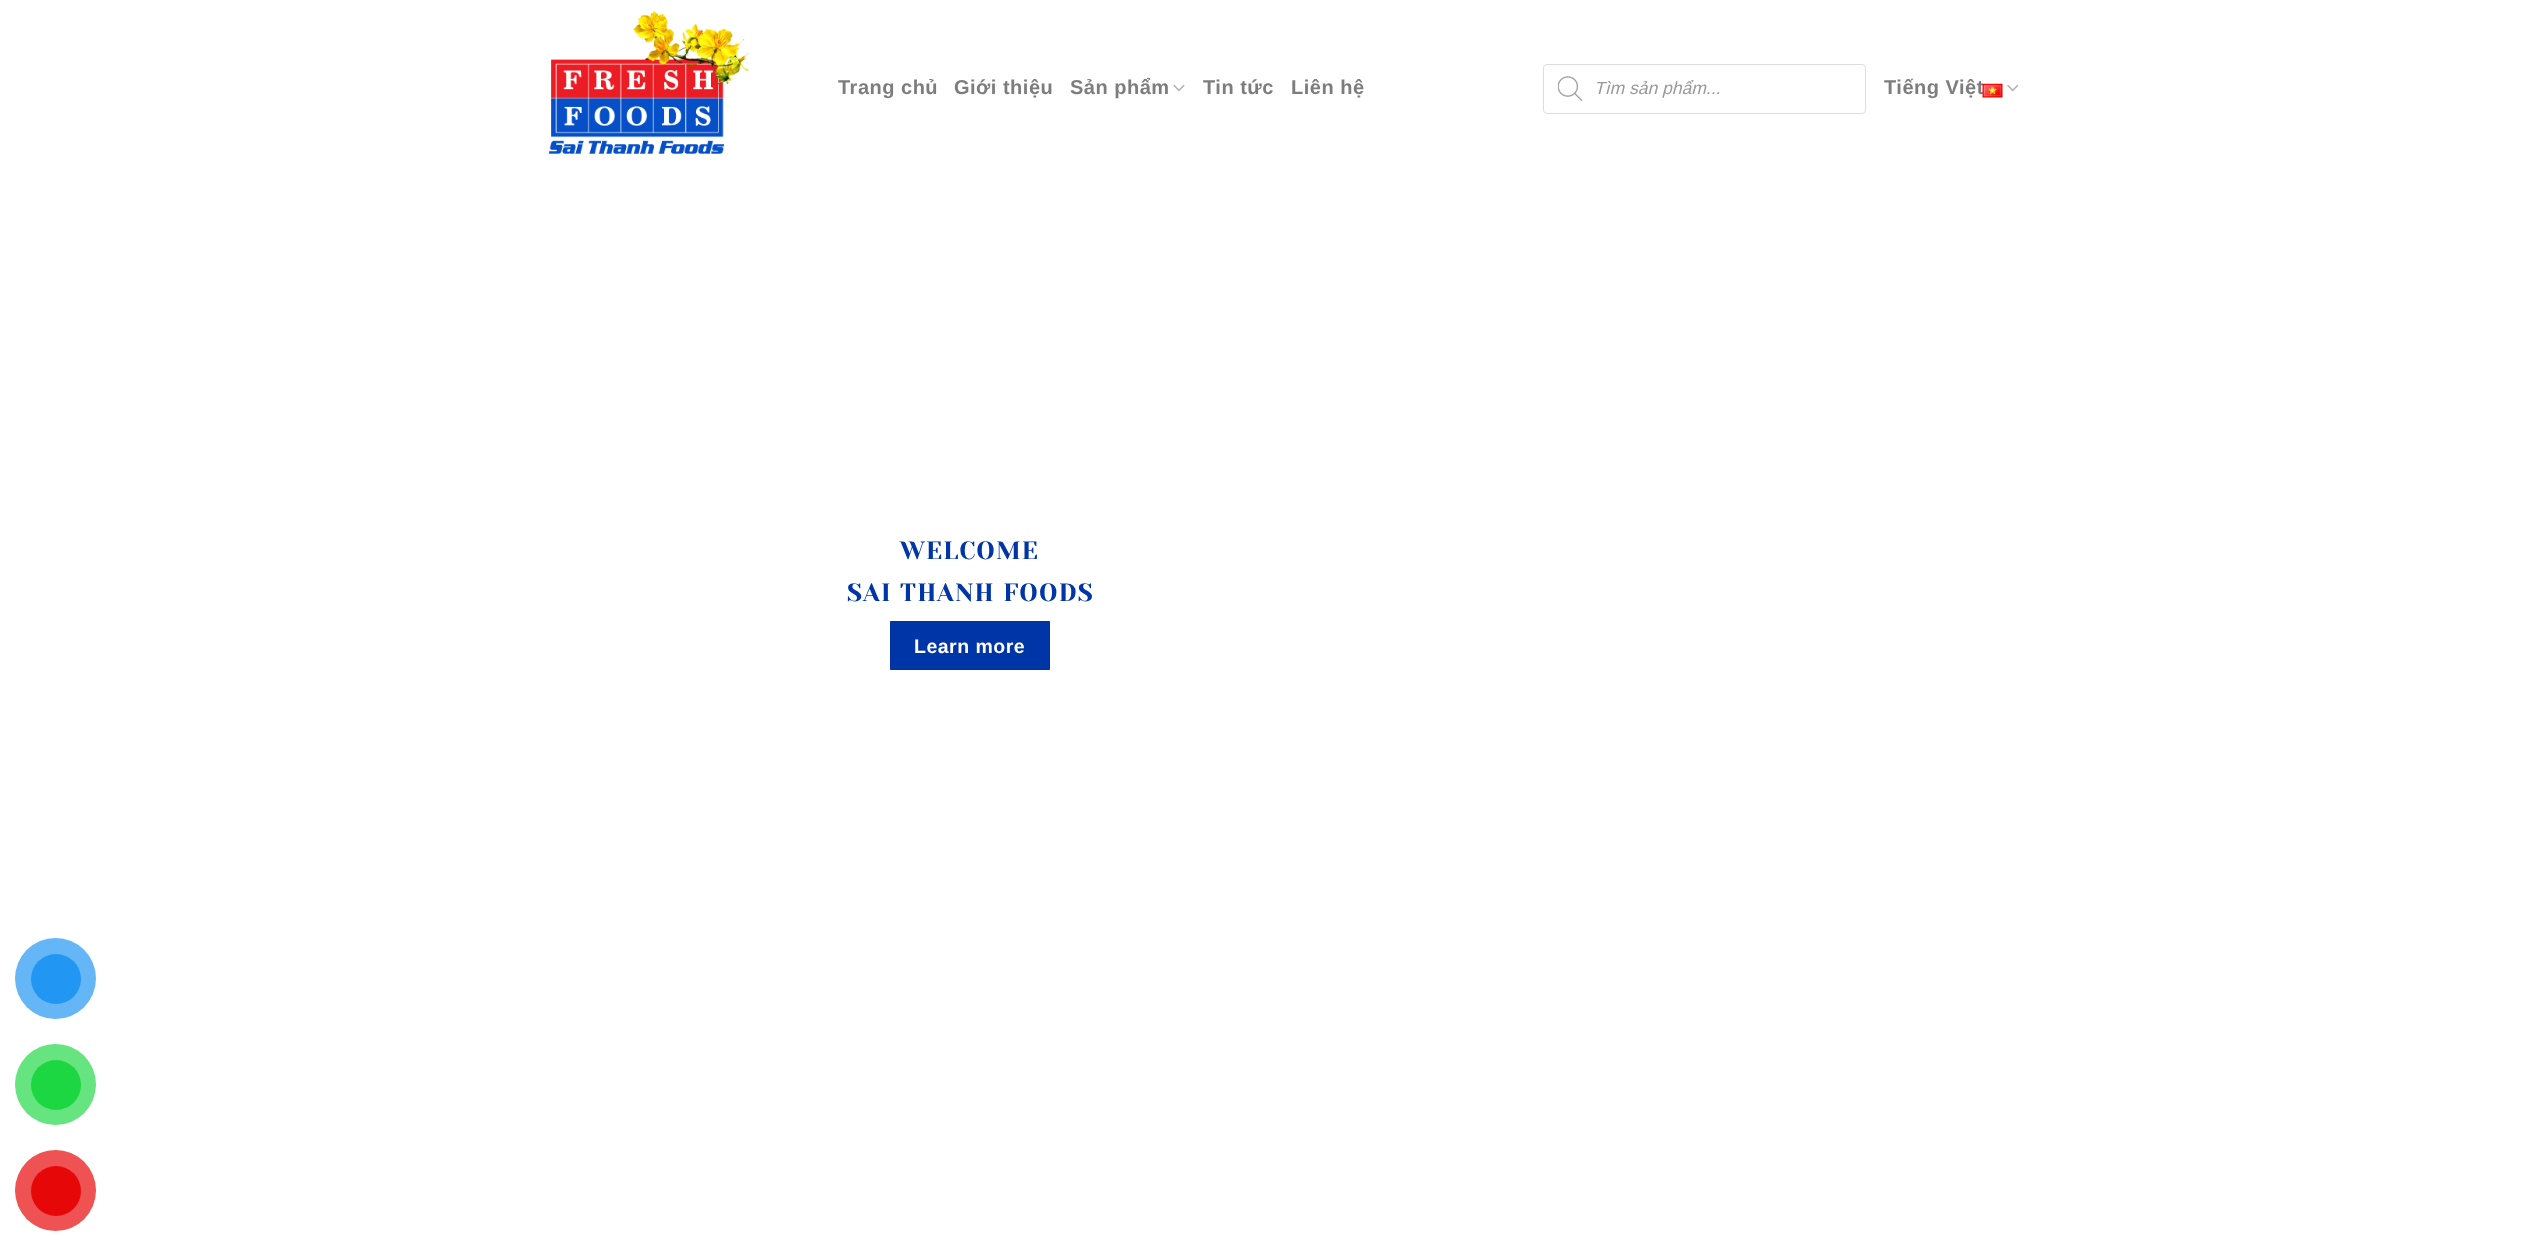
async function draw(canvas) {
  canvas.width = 2540;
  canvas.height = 1247;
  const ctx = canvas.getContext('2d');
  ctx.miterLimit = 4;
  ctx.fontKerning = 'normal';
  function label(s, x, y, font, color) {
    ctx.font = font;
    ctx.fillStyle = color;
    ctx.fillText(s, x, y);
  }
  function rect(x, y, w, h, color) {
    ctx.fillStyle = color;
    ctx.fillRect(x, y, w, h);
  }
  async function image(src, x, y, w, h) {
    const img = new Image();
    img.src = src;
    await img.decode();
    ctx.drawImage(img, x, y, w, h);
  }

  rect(0, 0, 2540, 1247, '#fff');
  await image('assets/img1.png', 548, 11, 201, 143);
  ctx.letterSpacing = '0.5px';
  label('Trang chủ', 838, 94, 'bold 20px Arimo', '#7d7d7d');
  label('Giới thiệu', 954, 94, 'bold 20px Arimo', '#7d7d7d');
  label('Sản phẩm', 1070, 94, 'bold 20px Arimo', '#7d7d7d');
  await image('assets/img2.png', 1173, 84, 12, 8);
  label('Tin tức', 1203, 94, 'bold 20px Arimo', '#7d7d7d');
  label('Liên hệ', 1291, 94, 'bold 20px Arimo', '#7d7d7d');
  ctx.beginPath();
  ctx.roundRect(1543.5, 64.5, 322, 49, 3.5);
  ctx.strokeStyle = '#ddd';
  ctx.stroke();
  await image('assets/img3.png', 1558, 76, 25, 25);
  ctx.letterSpacing = '0px';
  label('Tìm sản phẩm...', 1594, 94, 'italic 17.5px Arimo', '#999');
  ctx.letterSpacing = '0.5px';
  label('Tiếng Việt', 1884, 94, 'bold 20px Arimo', '#7d7d7d');
  await image('assets/img4.png', 1982, 83, 21, 15);
  await image('assets/img5.png', 2007, 84, 12, 8);
  ctx.letterSpacing = '1.25px';
  label('WELCOME', 900, 559, '25px Yeseva One', '#0035a8');
  label('SAI THANH FOODS', 847, 601, '25px Yeseva One', '#0035a8');
  ctx.beginPath();
  ctx.rect(890.5, 621.5, 159, 48);
  ctx.fill();
  ctx.strokeStyle = '#0032a0';
  ctx.stroke();
  ctx.letterSpacing = '0.5px';
  label('Learn more', 914, 653, 'bold 19.5px Arimo', '#fff');
  ctx.fillStyle = '#64b6f7';
  ctx.beginPath();
  ctx.arc(55.5, 978.5, 40.5, 0, 2 * Math.PI);
  ctx.fill();
  ctx.fillStyle = '#2196f3';
  ctx.beginPath();
  ctx.arc(56, 979, 25, 0, 2 * Math.PI);
  ctx.fill();
  ctx.fillStyle = '#65e47f';
  ctx.beginPath();
  ctx.arc(55.5, 1084.5, 40.5, 0, 2 * Math.PI);
  ctx.fill();
  ctx.fillStyle = '#1cd741';
  ctx.beginPath();
  ctx.arc(56, 1085, 25, 0, 2 * Math.PI);
  ctx.fill();
  ctx.fillStyle = '#ee5252';
  ctx.beginPath();
  ctx.arc(55.5, 1190.5, 40.5, 0, 2 * Math.PI);
  ctx.fill();
  ctx.fillStyle = '#e60808';
  ctx.beginPath();
  ctx.arc(56, 1191, 25, 0, 2 * Math.PI);
  ctx.fill();
}

draw(document.querySelector('canvas'));
